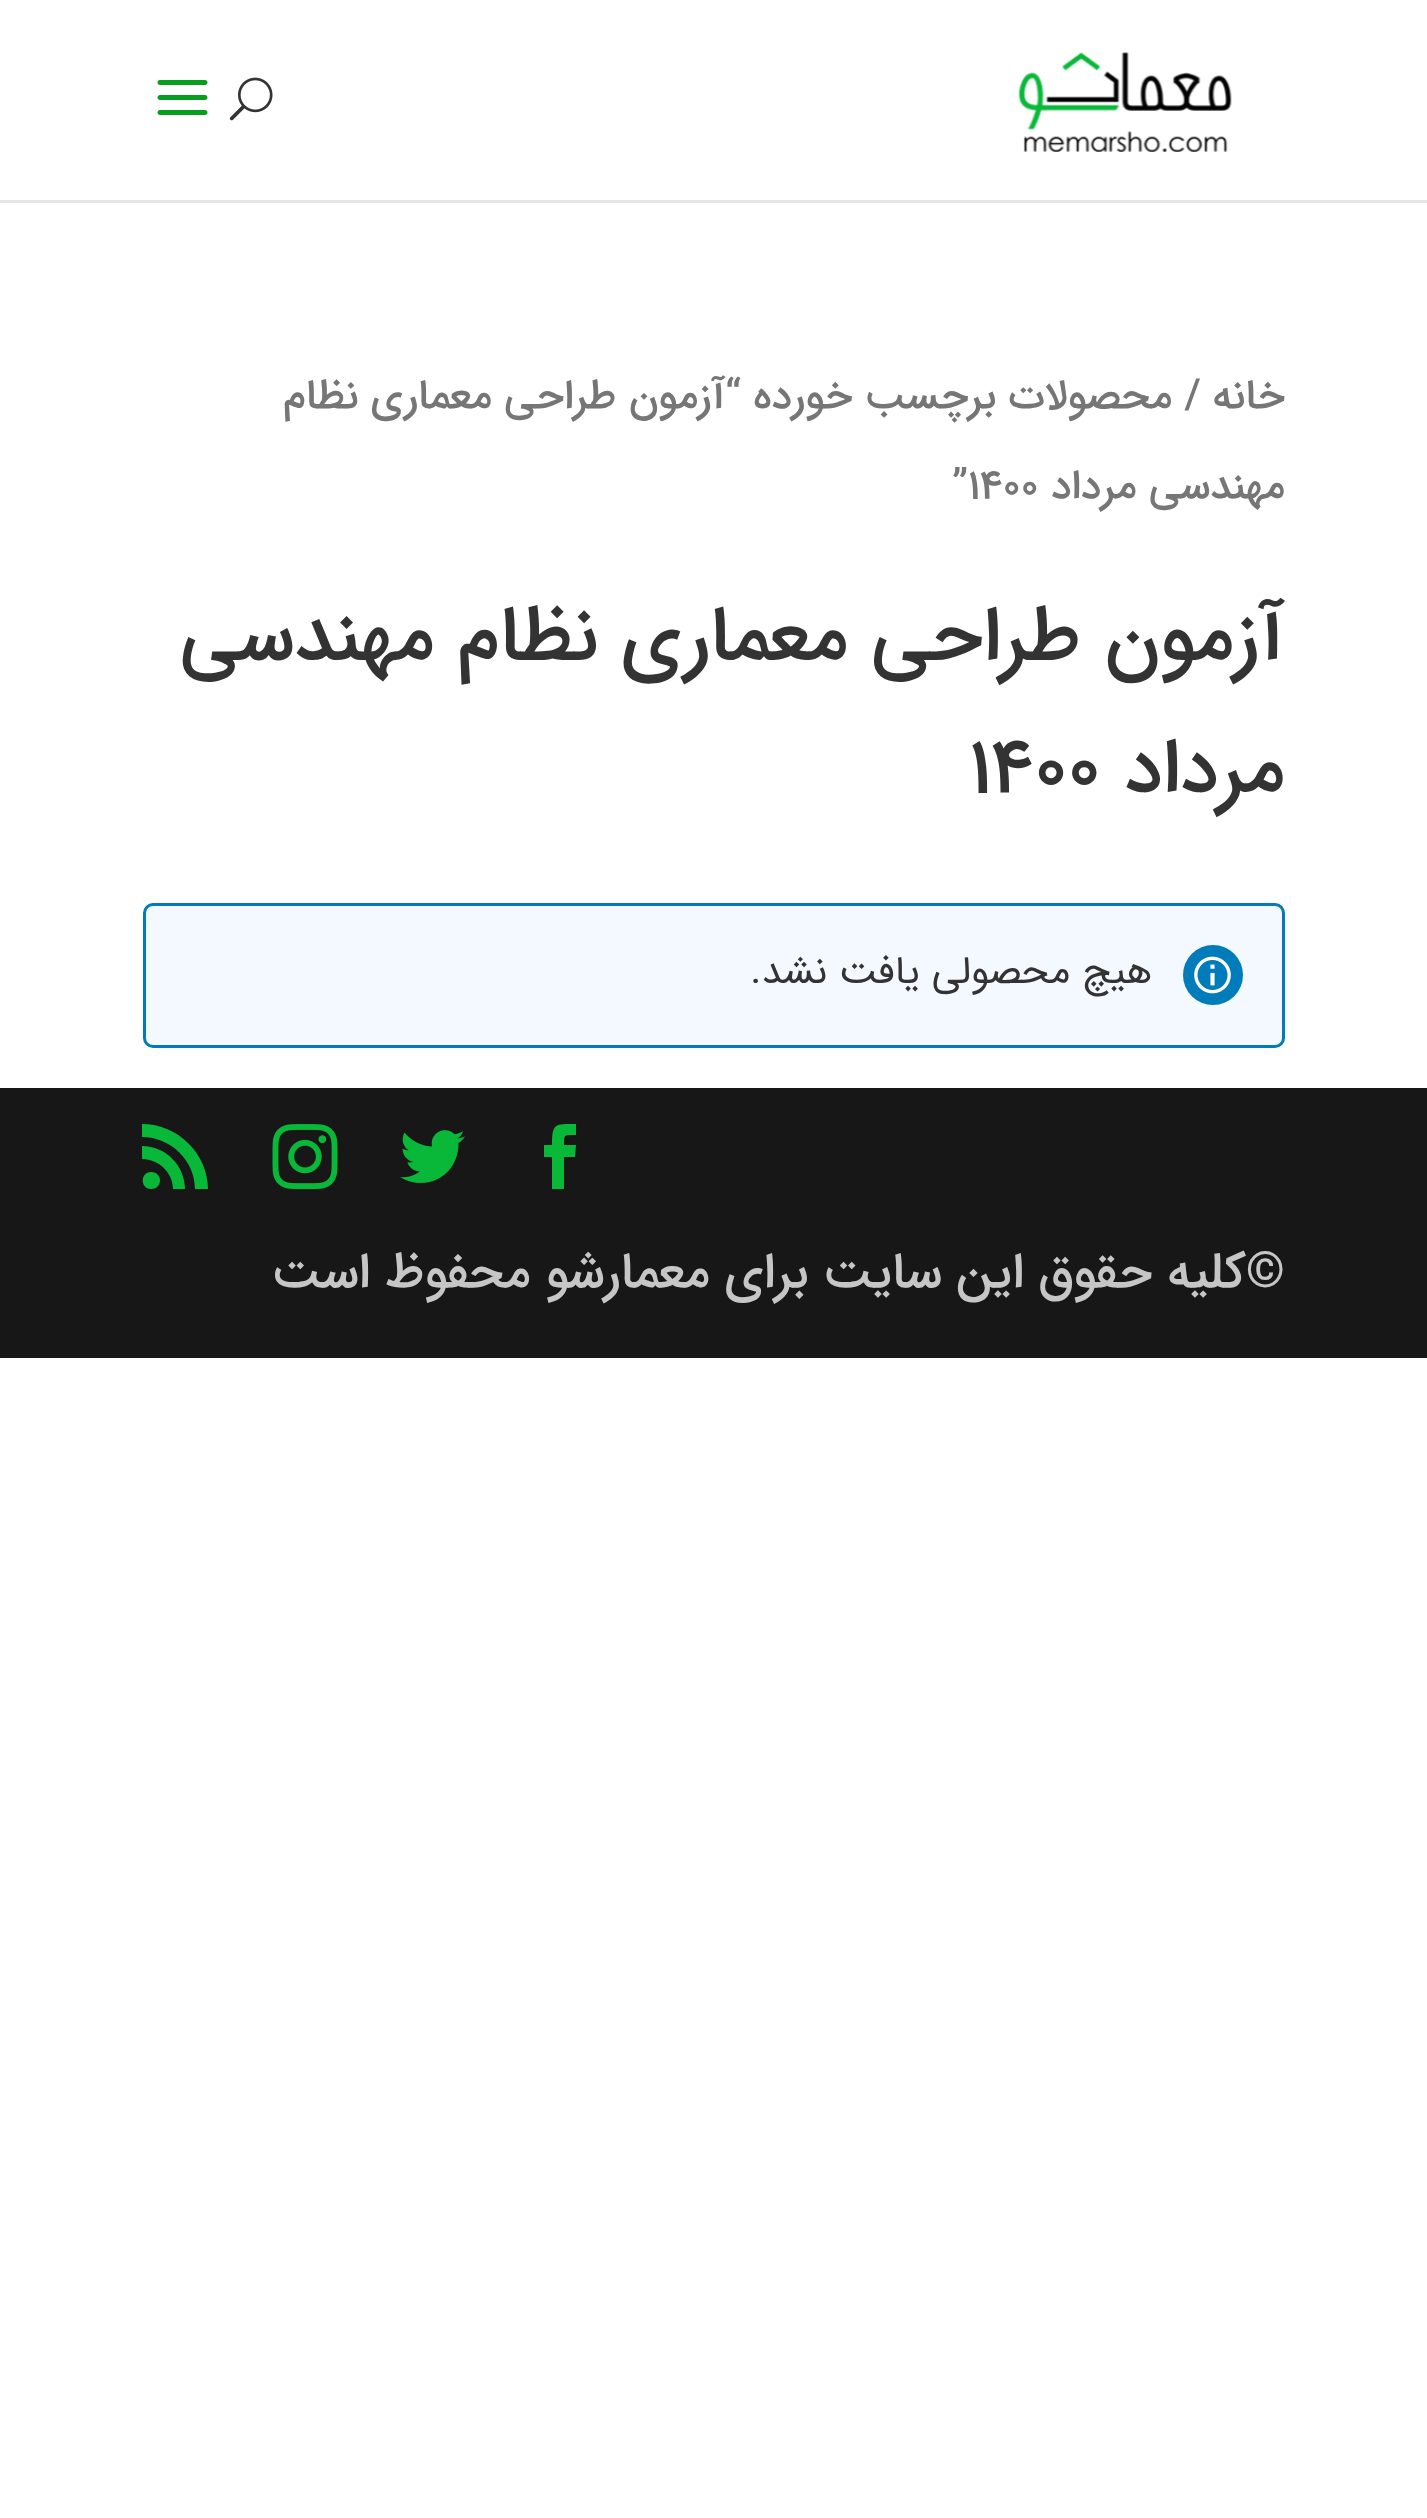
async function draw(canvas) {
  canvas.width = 1427;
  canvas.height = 2518;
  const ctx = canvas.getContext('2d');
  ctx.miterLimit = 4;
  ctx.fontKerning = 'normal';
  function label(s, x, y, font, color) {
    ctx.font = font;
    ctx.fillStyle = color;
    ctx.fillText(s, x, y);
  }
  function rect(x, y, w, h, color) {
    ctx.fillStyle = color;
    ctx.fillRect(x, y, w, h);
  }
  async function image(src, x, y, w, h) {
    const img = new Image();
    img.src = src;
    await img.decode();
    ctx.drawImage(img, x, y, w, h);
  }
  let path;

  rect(0, 0, 1427, 2518, '#fff');
  ctx.fillStyle = '#e6e6e6';
  path = new Path2D('M0 200V203H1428V3V200Z');
  ctx.fill(path);
  await image('assets/img1.png', 1018, 52, 214, 100);
  await image('assets/img2.png', 229, 77, 44, 44);
  await image('assets/img3.png', 157, 80, 51, 35);
  ctx.direction = 'rtl';
  label('خانه', 1285, 408, '500 41.4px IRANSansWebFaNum', '#767676');
  label('/ محصولات برچسب خورده “آزمون طراحی معماری نظام', 1201, 408, '500 41.4px IRANSansWebFaNum', '#767676');
  label('مهندسی مرداد', 1285, 498, '500 41.4px IRANSansWebFaNum', '#767676');
  ctx.direction = 'ltr';
  label('”1400', 952, 498, '500 41.4px IRANSansWebFaNum', '#767676');
  ctx.direction = 'rtl';
  label('آزمون طراحی معماری نظام مهندسی', 1285, 659, '500 77.5px IRANSansWebFaNum', '#333');
  label('مرداد', 1285, 791, '500 77.5px IRANSansWebFaNum', '#333');
  ctx.direction = 'ltr';
  label('1400', 969, 791, '500 77.5px IRANSansWebFaNum', '#333');
  ctx.fillStyle = '#f4f8ff';
  ctx.beginPath();
  ctx.roundRect(144.5, 904.5, 1139, 142, 8.5);
  ctx.fill();
  ctx.strokeStyle = '#007cba';
  ctx.lineWidth = 3;
  ctx.stroke();
  ctx.fillStyle = '#007cba';
  ctx.beginPath();
  ctx.arc(1213, 975, 30, 0, 2 * Math.PI);
  ctx.fill();
  await image('assets/img4.png', 1194, 956, 37, 38);
  ctx.direction = 'rtl';
  label('هیچ محصولی یافت نشد.', 1152, 983, '39.4px IRANSansWebFaNum', '#333');
  rect(0, 1088, 1427, 270, '#171717');
  ctx.fillStyle = '#09b838';
  path = new Path2D('M552 1189H564V1157H575L576 1145H564C564 1134 564 1135 576 1135V1124C555 1124 552 1123 552 1145H544V1157H552Z');
  ctx.fill(path);
  await image('assets/img5.png', 400, 1130, 65, 53);
  await image('assets/img6.png', 272, 1124, 66, 66);
  path = new Path2D('M142 1124V1137C171 1137 195 1161 195 1189H208C208 1154 178 1124 142 1124ZM173 1189H185C185 1166 166 1146 142 1146V1159C159 1159 173 1173 173 1189ZM151 1189C163 1189 163 1172 151 1172C140 1172 140 1189 151 1189Z');
  ctx.fill(path);
  label('©کلیه حقوق این سایت برای معمارشو محفوظ است', 1285, 1287, '500 50px IRANSansWebFaNum', '#c6c6c6');
}

draw(document.querySelector('canvas'));
